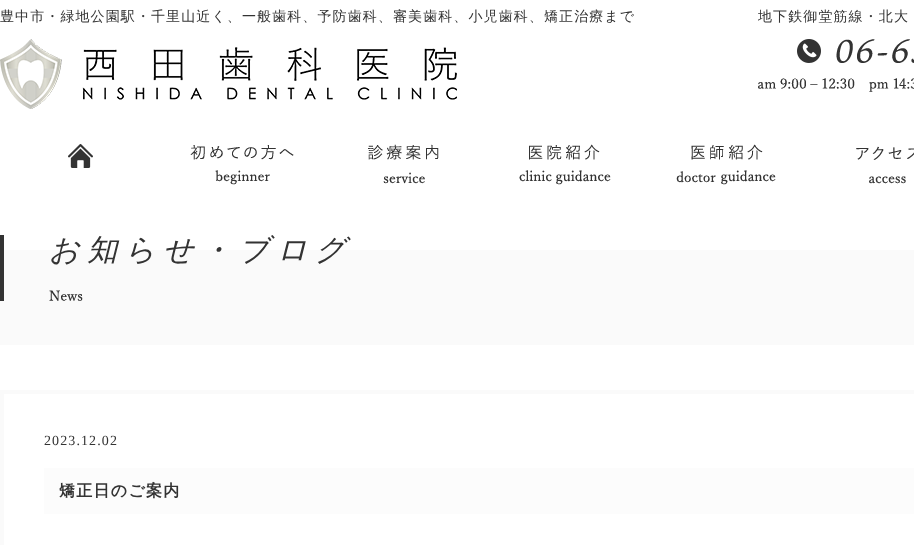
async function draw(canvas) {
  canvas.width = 914;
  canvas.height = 545;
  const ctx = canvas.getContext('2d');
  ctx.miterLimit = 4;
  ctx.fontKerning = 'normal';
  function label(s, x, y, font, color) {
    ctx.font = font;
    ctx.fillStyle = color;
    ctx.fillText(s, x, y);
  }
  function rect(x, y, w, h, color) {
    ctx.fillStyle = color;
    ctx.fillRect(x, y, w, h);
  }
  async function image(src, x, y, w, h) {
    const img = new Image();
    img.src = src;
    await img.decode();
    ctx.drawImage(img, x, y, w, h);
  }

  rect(0, 0, 914, 545, '#fff');
  ctx.letterSpacing = '1.1px';
  label('豊中市・緑地公園駅・千里山近く、一般歯科、予防歯科、審美歯科、小児歯科、矯正治療まで', 0, 21, '500 14px WenQuanYi Zen Hei', '#333');
  await image('assets/img1.png', 0, 39, 457, 70);
  ctx.wordSpacing = '-1px';
  label('地下鉄御堂筋線・北大', 758, 21, '500 14px WenQuanYi Zen Hei', '#333');
  await image('assets/img2.png', 758, 39, 156, 53);
  await image('assets/img3.png', 68, 144, 25, 24);
  await image('assets/img4.png', 190, 145, 104, 15);
  await image('assets/img5.png', 215, 170, 55, 15);
  await image('assets/img6.png', 368, 144, 71, 16);
  await image('assets/img7.png', 383, 172, 42, 12);
  await image('assets/img8.png', 529, 144, 71, 16);
  await image('assets/img9.png', 519, 170, 92, 15);
  await image('assets/img10.png', 691, 144, 72, 16);
  await image('assets/img11.png', 676, 170, 100, 15);
  await image('assets/img12.png', 856, 146, 58, 14);
  await image('assets/img13.png', 869, 176, 37, 8);
  rect(0, 250, 914, 95, '#fafafa');
  rect(0, 235, 4, 66, '#333');
  ctx.letterSpacing = '7.5px';
  ctx.wordSpacing = '0px';
  label('お知らせ・ブログ', 49, 260, 'italic 500 30px WenQuanYi Zen Hei', '#333');
  await image('assets/img14.png', 49, 290, 34, 11);
  ctx.strokeStyle = '#fafafa';
  ctx.lineWidth = 4;
  ctx.strokeRect(2, 392, 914, 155);
  ctx.letterSpacing = '1.1px';
  label('2023.12.02', 44, 445, '14px Liberation Serif', '#333');
  rect(44, 468, 870, 46, '#fcfcfc');
  ctx.letterSpacing = '1.25px';
  label('矯正日のご案内', 59, 496, 'bold 16px WenQuanYi Zen Hei', '#333');
}

draw(document.querySelector('canvas'));
